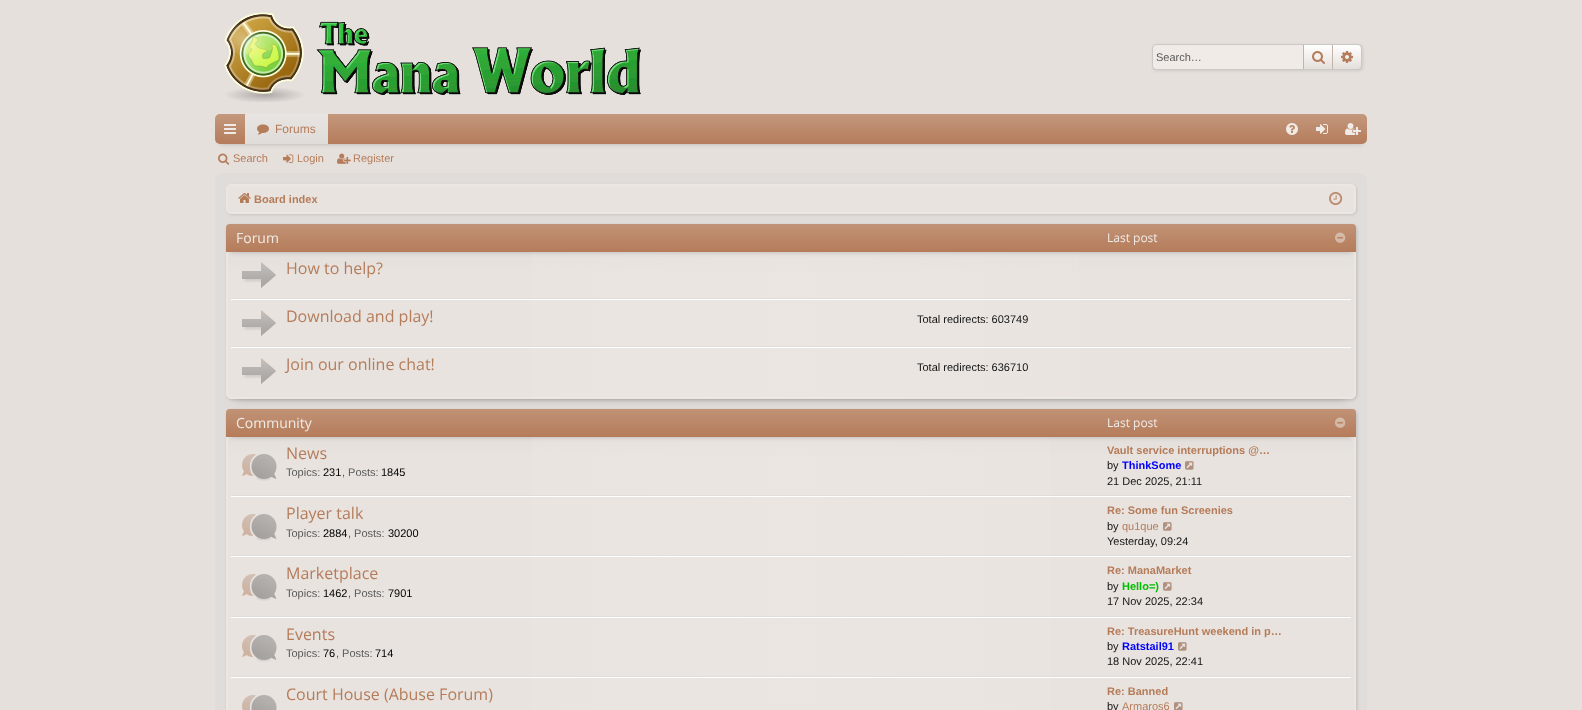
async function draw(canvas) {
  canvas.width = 1582;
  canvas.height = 710;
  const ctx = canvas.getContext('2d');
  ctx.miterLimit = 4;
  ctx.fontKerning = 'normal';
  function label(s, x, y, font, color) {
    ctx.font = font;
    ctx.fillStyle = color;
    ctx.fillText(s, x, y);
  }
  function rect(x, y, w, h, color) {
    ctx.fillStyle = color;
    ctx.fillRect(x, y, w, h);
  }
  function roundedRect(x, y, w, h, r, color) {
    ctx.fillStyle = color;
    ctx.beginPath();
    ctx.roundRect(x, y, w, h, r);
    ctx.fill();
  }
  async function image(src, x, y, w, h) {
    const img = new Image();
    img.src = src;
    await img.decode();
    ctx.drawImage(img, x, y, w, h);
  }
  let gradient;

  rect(0, 0, 1582, 710, '#e6e0dd');
  await image('assets/img1.png', 224, 12, 417, 90);
  ctx.fillStyle = '#0000001a';
  ctx.filter = 'blur(1.5px)';
  ctx.beginPath();
  ctx.roundRect(1153, 45, 210, 26, 4);
  ctx.fill();
  ctx.filter = 'none';
  ctx.beginPath();
  ctx.roundRect(1152.5, 44.5, 209, 25, 3.5);
  ctx.strokeStyle = '#cbc9c8';
  ctx.stroke();
  ctx.fillStyle = '#f0ebe7';
  ctx.beginPath();
  ctx.roundRect(1153, 45, 150, 24, [4, 0, 0, 4]);
  ctx.fill();
  label('Search…', 1156, 61, '11px Liberation Sans', '#5b5b5b');
  gradient = ctx.createLinearGradient(1318, 45, 1318, 69);
  gradient.addColorStop(0, '#fff');
  gradient.addColorStop(1, '#e4dfdb');
  ctx.fillStyle = gradient;
  ctx.fillRect(1304, 45, 28, 24);
  rect(1332, 45, 1, 24, '#c4b3a8');
  rect(1303, 45, 1, 24, '#c4b3a8');
  await image('assets/img2.png', 1312, 51, 13, 13);
  gradient = ctx.createLinearGradient(1347, 45, 1347, 69);
  gradient.addColorStop(0, '#fff');
  gradient.addColorStop(1, '#e4dfdb');
  ctx.fillStyle = gradient;
  ctx.beginPath();
  ctx.roundRect(1333, 45, 28, 24, [0, 4, 4, 0]);
  ctx.fill();
  await image('assets/img3.png', 1341, 51, 12, 12);
  ctx.fillStyle = '#00000033';
  ctx.filter = 'blur(2.5px)';
  ctx.beginPath();
  ctx.rect(220, 124, 1142, 20);
  ctx.fill();
  ctx.filter = 'none';
  roundedRect(215, 114, 1152, 30, 5, '#b57c5a');
  gradient = ctx.createLinearGradient(791, 114, 791, 144);
  gradient.addColorStop(0, '#f0ebe740');
  gradient.addColorStop(1, '#f0ebe700');
  ctx.fillStyle = gradient;
  ctx.beginPath();
  ctx.roundRect(215, 114, 1152, 30, 5);
  ctx.fill();
  await image('assets/img4.png', 224, 124, 12, 10);
  gradient = ctx.createLinearGradient(287, 114, 287, 144);
  gradient.addColorStop(0, '#e8e4e1');
  gradient.addColorStop(1, '#e0dcda');
  ctx.fillStyle = gradient;
  ctx.fillRect(245, 114, 83, 30);
  await image('assets/img5.png', 257, 124, 12, 11);
  label('Forums', 275, 133, '12px Liberation Sans', '#b57c5a');
  await image('assets/img6.png', 1286, 123, 12, 12);
  await image('assets/img7.png', 1316, 124, 12, 10);
  await image('assets/img8.png', 1345, 123, 16, 12);
  await image('assets/img9.png', 218, 153, 12, 12);
  label('Search', 233, 162, '11px Liberation Sans', '#b57c5a');
  await image('assets/img10.png', 283, 154, 11, 9);
  label('Login', 297, 162, '11px Liberation Sans', '#b57c5a');
  await image('assets/img11.png', 337, 153, 14, 11);
  label('Register', 353, 162, '11px Liberation Sans', '#b57c5a');
  roundedRect(215, 173, 1152, 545, 8, '#e0dcda');
  ctx.fillStyle = '#0000001a';
  ctx.filter = 'blur(1px)';
  ctx.beginPath();
  ctx.roundRect(227, 185, 1130, 30, 5);
  ctx.fill();
  ctx.filter = 'none';
  roundedRect(226, 184, 1130, 30, 5, '#e8e3df');
  ctx.beginPath();
  ctx.roundRect(227.5, 185.5, 1127, 27, 3.5);
  ctx.strokeStyle = '#ece7e3';
  ctx.stroke();
  ctx.beginPath();
  ctx.roundRect(226.5, 184.5, 1129, 29, 4.5);
  ctx.strokeStyle = '#ece6e3';
  ctx.stroke();
  await image('assets/img12.png', 238, 193, 13, 10);
  label('Board index', 254, 203, 'bold 11px Liberation Sans', '#b57c5a');
  await image('assets/img13.png', 1329, 191, 14, 15);
  ctx.fillStyle = '#00000033';
  ctx.filter = 'blur(5px)';
  ctx.beginPath();
  ctx.rect(236, 244, 1110, 155);
  ctx.fill();
  ctx.filter = 'none';
  ctx.fillStyle = '#00000026';
  ctx.filter = 'blur(1.5px)';
  ctx.beginPath();
  ctx.roundRect(227, 225, 1130, 175, 5);
  ctx.fill();
  ctx.filter = 'none';
  roundedRect(226, 224, 1130, 175, 5, '#e8e3df');
  ctx.save();
  ctx.beginPath();
  ctx.roundRect(226, 224, 1130, 175, 5);
  ctx.clip();
  gradient = ctx.createLinearGradient(791, 225, 791, 398);
  gradient.addColorStop(0, '#cbc9c833');
  gradient.addColorStop(0.06, '#cbc9c840');
  gradient.addColorStop(0.29, '#cbc9c800');
  ctx.fillStyle = gradient;
  ctx.fillRect(226, 225, 1130, 47);
  ctx.restore();
  gradient = ctx.createLinearGradient(227, 312, 1355, 311);
  gradient.addColorStop(0, '#f0ebe700');
  gradient.addColorStop(0.5, '#f0ebe74d');
  gradient.addColorStop(1, '#f0ebe700');
  ctx.fillStyle = gradient;
  ctx.fillRect(532, 252, 547, 146);
  ctx.beginPath();
  ctx.roundRect(227.5, 225.5, 1127, 172, 3.5);
  ctx.strokeStyle = '#f0ebe780';
  ctx.stroke();
  ctx.beginPath();
  ctx.roundRect(226.5, 224.5, 1129, 174, 4.5);
  ctx.strokeStyle = '#ece6e3';
  ctx.stroke();
  ctx.fillStyle = '#00000033';
  ctx.filter = 'blur(2.5px)';
  ctx.beginPath();
  ctx.rect(231, 234, 1120, 18);
  ctx.fill();
  ctx.filter = 'none';
  ctx.fillStyle = '#b57c5a';
  ctx.beginPath();
  ctx.roundRect(226, 224, 1130, 28, [4, 4, 0, 0]);
  ctx.fill();
  gradient = ctx.createLinearGradient(791, 224, 791, 252);
  gradient.addColorStop(0, '#f0ebe733');
  gradient.addColorStop(1, '#f0ebe700');
  ctx.fillStyle = gradient;
  ctx.beginPath();
  ctx.roundRect(226, 224, 1130, 28, [4, 4, 0, 0]);
  ctx.fill();
  label('Forum', 236, 243, '14px Open Sans', '#f0ebe7');
  label('Last post', 1107, 242, '12px Open Sans', '#f0ebe7');
  await image('assets/img14.png', 1335, 232, 11, 11);
  rect(231, 298, 1120, 1, '#e1ddda');
  await image('assets/img15.png', 242, 262, 34, 26);
  label('How to help?', 286, 274, '16px Open Sans', '#b57c5a');
  rect(231, 299, 1120, 1, '#fff');
  rect(231, 346, 1120, 1, '#e1ddda');
  await image('assets/img16.png', 242, 310, 34, 26);
  label('Download and play!', 286, 322, '16px Open Sans', '#b57c5a');
  label('Total redirects: 603749', 917, 323, '11px Liberation Sans', '#141414');
  rect(231, 347, 1120, 1, '#fff');
  await image('assets/img17.png', 242, 358, 34, 26);
  label('Join our online chat!', 286, 370, '16px Open Sans', '#b57c5a');
  label('Total redirects: 636710', 917, 371, '11px Liberation Sans', '#141414');
  ctx.fillStyle = '#00000026';
  ctx.filter = 'blur(1.5px)';
  ctx.beginPath();
  ctx.roundRect(227, 410, 1130, 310, 5);
  ctx.fill();
  ctx.filter = 'none';
  roundedRect(226, 409, 1130, 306, 5, '#e8e3df');
  ctx.save();
  ctx.beginPath();
  ctx.roundRect(226, 409, 1130, 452, 5);
  ctx.clip();
  gradient = ctx.createLinearGradient(791, 410, 791, 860);
  gradient.addColorStop(0, '#cbc9c833');
  gradient.addColorStop(0.02, '#cbc9c840');
  gradient.addColorStop(0.11, '#cbc9c800');
  ctx.fillStyle = gradient;
  ctx.fillRect(226, 410, 1130, 46);
  ctx.restore();
  gradient = ctx.createLinearGradient(227, 635, 1355, 635);
  gradient.addColorStop(0, '#f0ebe700');
  gradient.addColorStop(0.5, '#f0ebe74d');
  gradient.addColorStop(1, '#f0ebe700');
  ctx.fillStyle = gradient;
  ctx.fillRect(532, 437, 518, 273);
  ctx.beginPath();
  ctx.roundRect(227.5, 410.5, 1127, 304, 3.5);
  ctx.strokeStyle = '#f0ebe780';
  ctx.stroke();
  ctx.beginPath();
  ctx.roundRect(226.5, 409.5, 1129, 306, 4.5);
  ctx.strokeStyle = '#ece6e3';
  ctx.stroke();
  ctx.fillStyle = '#00000033';
  ctx.filter = 'blur(2.5px)';
  ctx.beginPath();
  ctx.rect(231, 419, 1120, 18);
  ctx.fill();
  ctx.filter = 'none';
  ctx.fillStyle = '#b57c5a';
  ctx.beginPath();
  ctx.roundRect(226, 409, 1130, 28, [4, 4, 0, 0]);
  ctx.fill();
  gradient = ctx.createLinearGradient(791, 409, 791, 437);
  gradient.addColorStop(0, '#f0ebe733');
  gradient.addColorStop(1, '#f0ebe700');
  ctx.fillStyle = gradient;
  ctx.beginPath();
  ctx.roundRect(226, 409, 1130, 28, [4, 4, 0, 0]);
  ctx.fill();
  label('Community', 236, 428, '14px Open Sans', '#f0ebe7');
  label('Last post', 1107, 427, '12px Open Sans', '#f0ebe7');
  await image('assets/img14.png', 1335, 417, 11, 11);
  rect(231, 495, 1120, 1, '#e1ddda');
  await image('assets/img18.png', 242, 454, 35, 27);
  label('News', 286, 459, '16px Open Sans', '#b57c5a');
  label('Topics:', 286, 476, '11px Liberation Sans', '#5b5b5b');
  label('231', 323, 476, '11px Liberation Sans', '#000');
  label(', Posts:', 342, 476, '11px Liberation Sans', '#5b5b5b');
  label('1845', 381, 476, '11px Liberation Sans', '#000');
  label('Vault service interruptions @…', 1107, 454, 'bold 11px Liberation Sans', '#b57c5a');
  label('by', 1107, 469, '11px Liberation Sans', '#141414');
  label('ThinkSome', 1122, 469, 'bold 11px Liberation Sans', '#00f');
  await image('assets/img19.png', 1185, 461, 9, 9);
  label('21 Dec 2025, 21:11', 1107, 485, '11px Liberation Sans', '#141414');
  rect(231, 496, 1120, 1, '#fff');
  rect(231, 555, 1120, 1, '#e1ddda');
  await image('assets/img20.png', 242, 514, 35, 27);
  label('Player talk', 286, 519, '16px Open Sans', '#b57c5a');
  label('Topics:', 286, 537, '11px Liberation Sans', '#5b5b5b');
  label('2884', 323, 537, '11px Liberation Sans', '#000');
  label(', Posts:', 348, 537, '11px Liberation Sans', '#5b5b5b');
  label('30200', 388, 537, '11px Liberation Sans', '#000');
  label('Re: Some fun Screenies', 1107, 514, 'bold 11px Liberation Sans', '#b57c5a');
  label('by', 1107, 530, '11px Liberation Sans', '#141414');
  label('qu1que', 1122, 530, '11px Liberation Sans', '#b57c5a');
  await image('assets/img21.png', 1163, 522, 9, 9);
  label('Yesterday, 09:24', 1107, 545, '11px Liberation Sans', '#141414');
  rect(231, 556, 1120, 1, '#fff');
  rect(231, 616, 1120, 1, '#e1ddda');
  await image('assets/img20.png', 242, 574, 35, 27);
  label('Marketplace', 286, 579, '16px Open Sans', '#b57c5a');
  label('Topics:', 286, 597, '11px Liberation Sans', '#5b5b5b');
  label('1462', 323, 597, '11px Liberation Sans', '#000');
  label(', Posts:', 348, 597, '11px Liberation Sans', '#5b5b5b');
  label('7901', 388, 597, '11px Liberation Sans', '#000');
  label('Re: ManaMarket', 1107, 574, 'bold 11px Liberation Sans', '#b57c5a');
  label('by', 1107, 590, '11px Liberation Sans', '#141414');
  label('Hello=)', 1122, 590, 'bold 11px Liberation Sans', '#00bf00');
  await image('assets/img21.png', 1163, 582, 9, 9);
  label('17 Nov 2025, 22:34', 1107, 605, '11px Liberation Sans', '#141414');
  rect(231, 617, 1120, 1, '#fff');
  rect(231, 676, 1120, 1, '#e1ddda');
  await image('assets/img20.png', 242, 635, 35, 27);
  label('Events', 286, 640, '16px Open Sans', '#b57c5a');
  label('Topics:', 286, 657, '11px Liberation Sans', '#5b5b5b');
  label('76', 323, 657, '11px Liberation Sans', '#000');
  label(', Posts:', 336, 657, '11px Liberation Sans', '#5b5b5b');
  label('714', 375, 657, '11px Liberation Sans', '#000');
  label('Re: TreasureHunt weekend in p…', 1107, 635, 'bold 11px Liberation Sans', '#b57c5a');
  label('by', 1107, 650, '11px Liberation Sans', '#141414');
  label('Ratstail91', 1122, 650, 'bold 11px Liberation Sans', '#00f');
  await image('assets/img22.png', 1178, 642, 9, 9);
  label('18 Nov 2025, 22:41', 1107, 665, '11px Liberation Sans', '#141414');
  rect(231, 677, 1120, 1, '#fff');
  await image('assets/img23.png', 242, 695, 35, 15);
  label('Court House (Abuse Forum)', 286, 700, '16px Open Sans', '#b57c5a');
  label('Re: Banned', 1107, 695, 'bold 11px Liberation Sans', '#b57c5a');
  label('by', 1107, 710, '11px Liberation Sans', '#141414');
  label('Armaros6', 1122, 710, '11px Liberation Sans', '#b57c5a');
  await image('assets/img24.png', 1174, 702, 9, 8);
}

draw(document.querySelector('canvas'));
